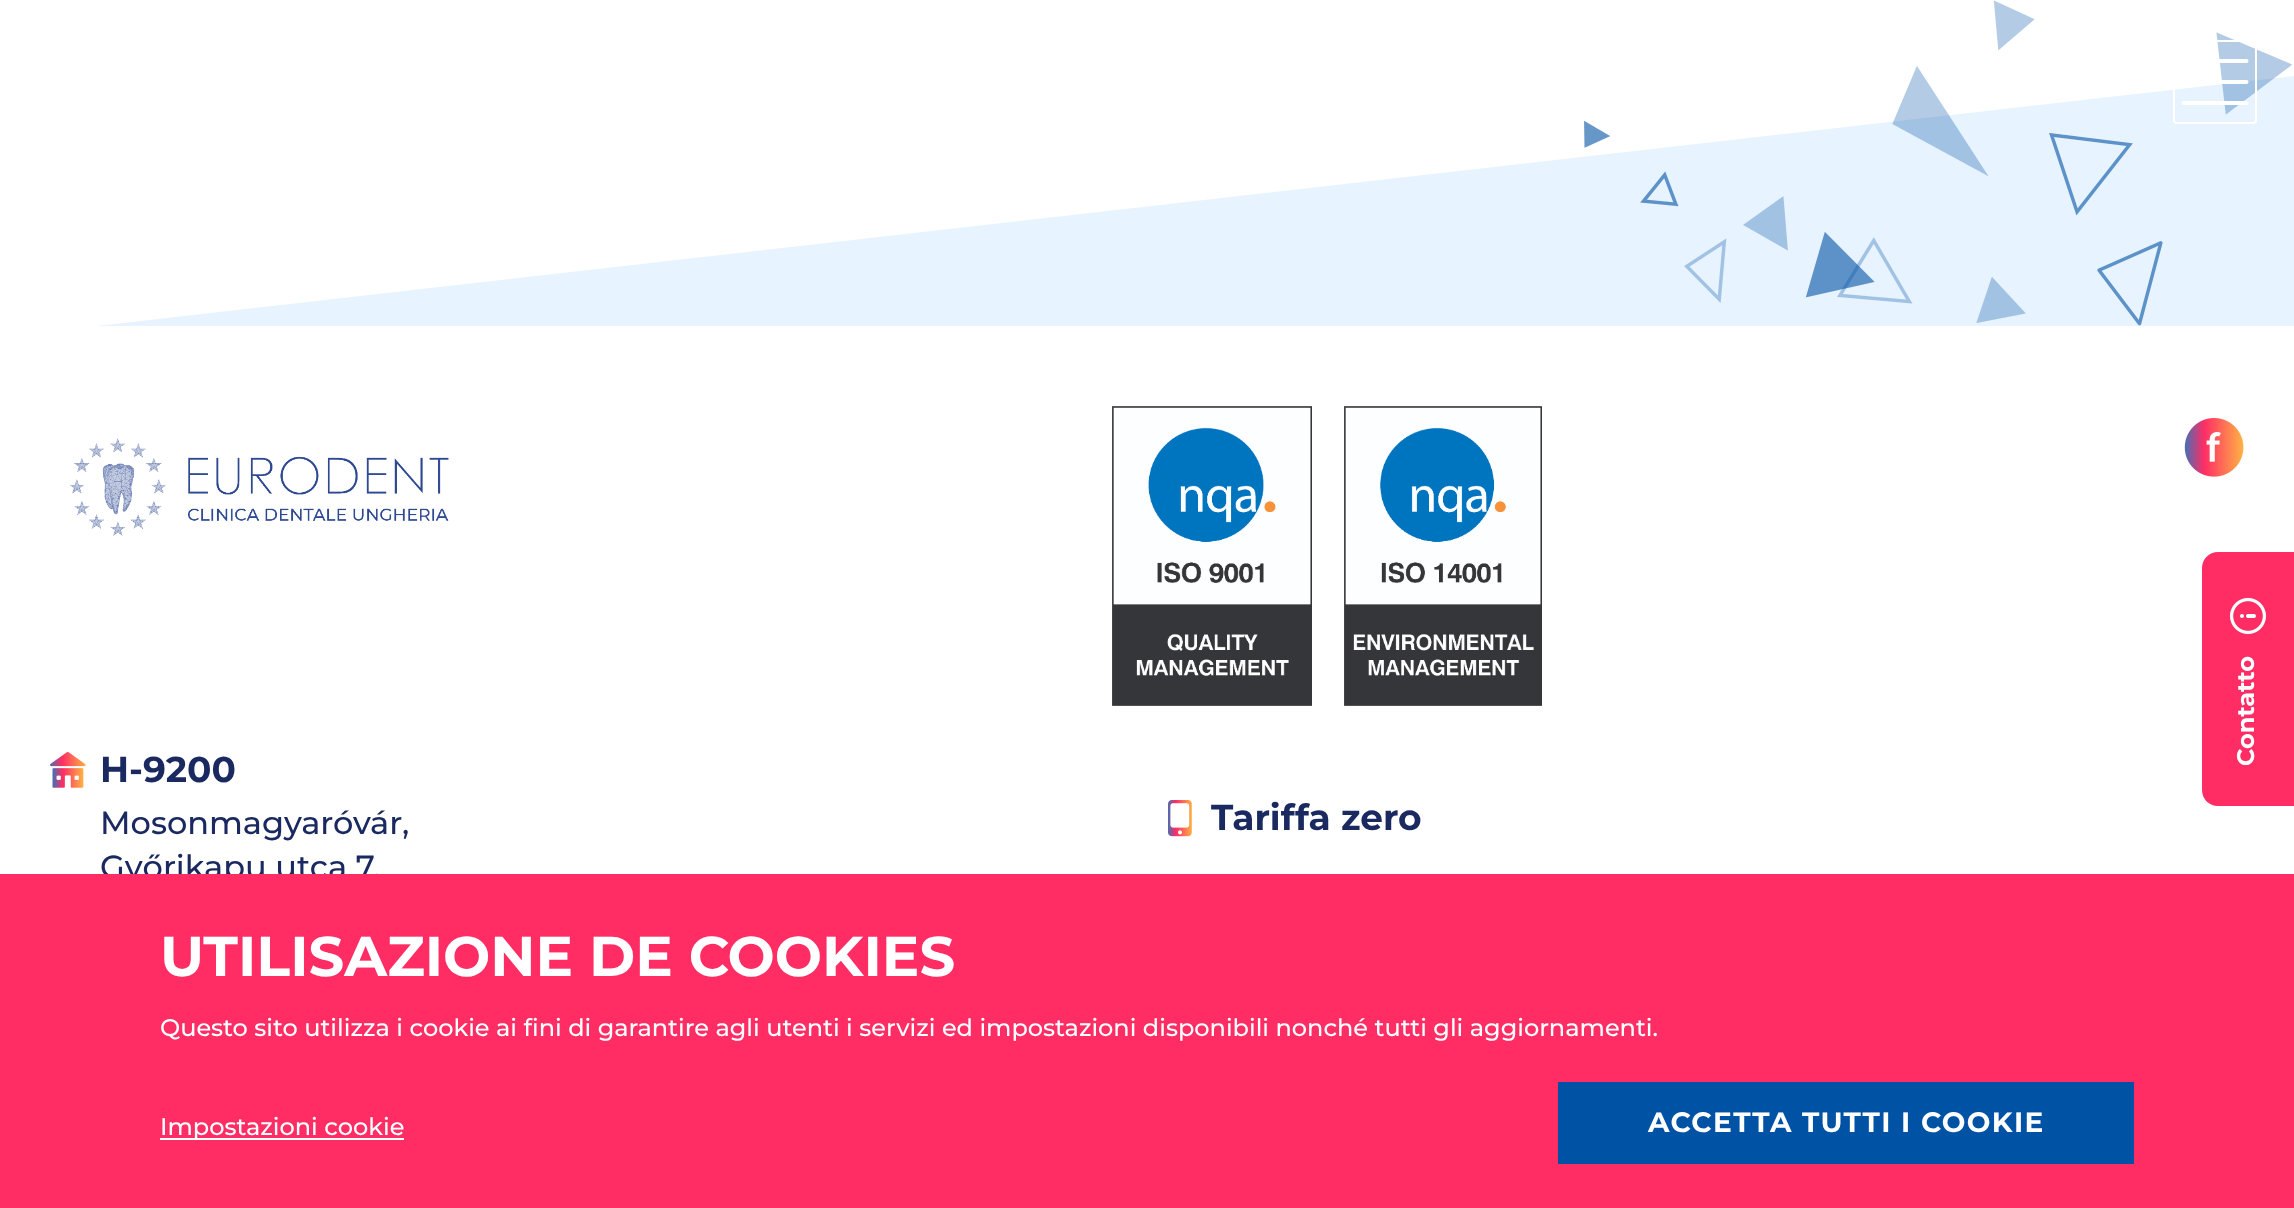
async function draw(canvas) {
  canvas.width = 2294;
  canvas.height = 1208;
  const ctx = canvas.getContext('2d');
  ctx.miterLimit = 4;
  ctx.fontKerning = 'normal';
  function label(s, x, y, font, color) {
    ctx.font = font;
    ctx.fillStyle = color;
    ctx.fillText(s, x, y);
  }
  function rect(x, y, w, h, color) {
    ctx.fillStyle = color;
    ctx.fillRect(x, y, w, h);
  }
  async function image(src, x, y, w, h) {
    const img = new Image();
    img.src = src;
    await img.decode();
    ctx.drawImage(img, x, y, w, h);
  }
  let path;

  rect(0, 0, 2294, 1208, '#fff');
  ctx.fillStyle = '#e7f3ff';
  path = new Path2D('M0 337L2294 76V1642L0 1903Z');
  ctx.fill(path);
  await image('assets/img2.png', 1584, 0, 708, 326);
  path = new Path2D('M2183.5 61H2246.5');
  ctx.strokeStyle = '#fff';
  ctx.lineWidth = 4;
  ctx.lineCap = 'round';
  ctx.lineJoin = 'round';
  ctx.stroke(path);
  path = new Path2D('M2183.5 82H2246.5');
  ctx.stroke(path);
  path = new Path2D('M2183.5 103H2246.5');
  ctx.stroke(path);
  ctx.beginPath();
  ctx.roundRect(2174, 41, 82, 82, 3);
  ctx.lineWidth = 2;
  ctx.lineJoin = 'miter';
  ctx.stroke();
  rect(0, 326, 2294, 548, '#fff');
  ctx.fillStyle = '#ff2d64';
  path = new Path2D('M2202 790V568C2202 559 2209 552 2218 552H2294V806H2218C2209 806 2202 799 2202 790Z');
  ctx.fill(path);
  await image('assets/img1.png', 2230, 598, 36, 36);
  ctx.font = 'bold 24px Montserrat';
  ctx.fillStyle = '#fff';
  ctx.save();
  ctx.translate(2254, 766);
  ctx.rotate(-90 * Math.PI / 180);
  ctx.fillText('Contatto', 0, 0);
  ctx.restore();
  await image('assets/img3.png', 69, 438, 380, 98);
  await image('assets/img4.png', 1112, 406, 200, 300);
  await image('assets/img5.png', 1344, 406, 198, 300);
  await image('assets/img6.png', 2184, 418, 60, 59);
  await image('assets/img7.png', 50, 752, 36, 36);
  label('H-9200', 100, 782, 'bold 36px Montserrat', '#1a2a61');
  label('Mosonmagyaróvár,', 100, 834, '500 32px Montserrat', '#1a2a61');
  label('Győrikapu utca 7.', 100, 878, '500 32px Montserrat', '#1a2a61');
  await image('assets/img8.png', 1168, 800, 24, 37);
  label('Tariffa zero', 1211, 830, 'bold 36px Montserrat', '#1a2a61');
  rect(0, 874, 2294, 334, '#ff2d64');
  label('UTILISAZIONE DE COOKIES', 160, 976, 'bold 56px Montserrat', '#fff');
  label('Questo sito utilizza i cookie ai fini di garantire agli utenti i servizi ed impostazioni disponibili nonché tutti gli aggiornamenti.', 160, 1036, '500 24px Montserrat', '#fff');
  rect(160, 1138, 244, 2, '#fff');
  label('Impostazioni cookie', 160, 1135, '500 24px Montserrat', '#fff');
  rect(1558, 1082, 576, 82, '#0052a4');
  ctx.letterSpacing = '1.4px';
  label('ACCETTA TUTTI I COOKIE', 1648, 1132, 'bold 28px Montserrat', '#fff');
}

draw(document.querySelector('canvas'));
